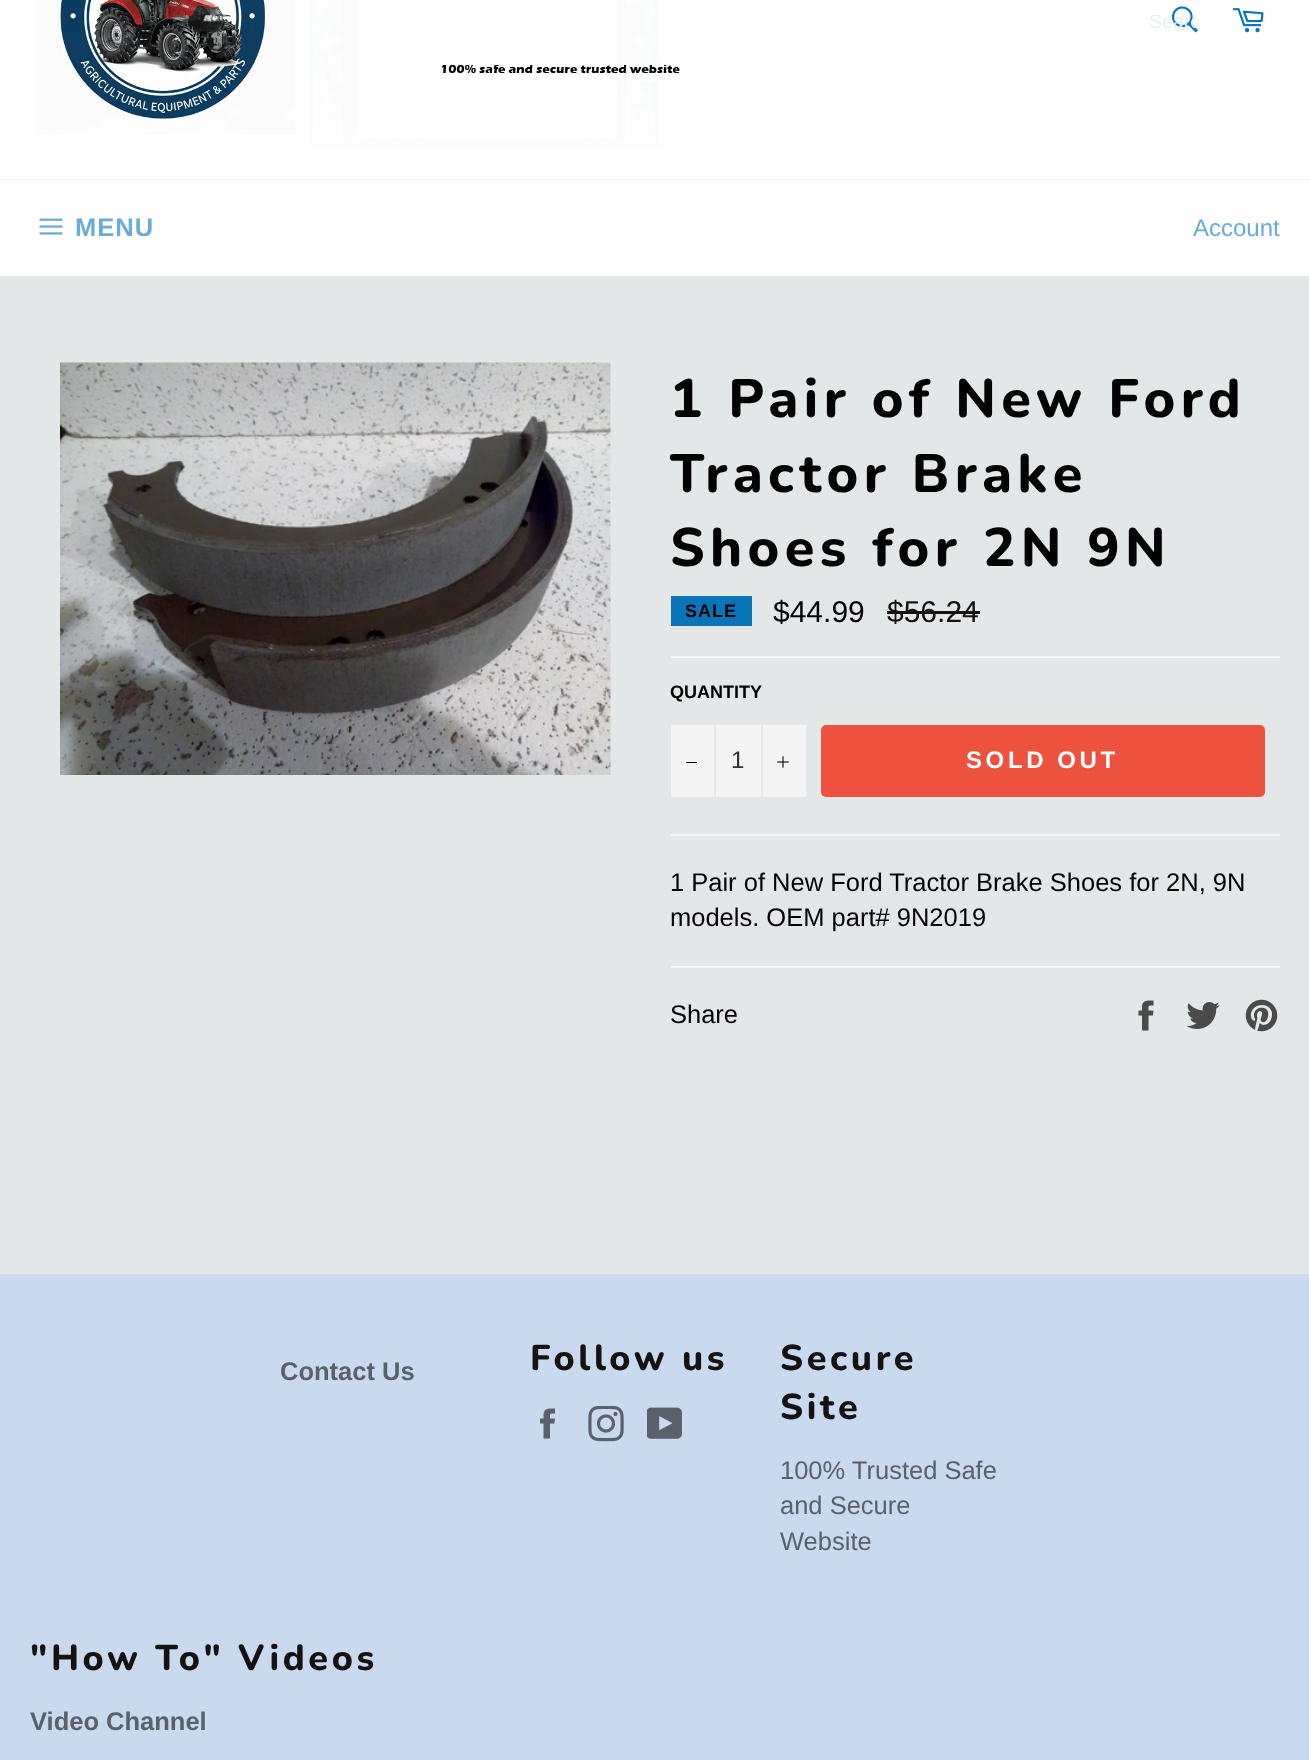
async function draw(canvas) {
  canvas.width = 1309;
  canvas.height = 1760;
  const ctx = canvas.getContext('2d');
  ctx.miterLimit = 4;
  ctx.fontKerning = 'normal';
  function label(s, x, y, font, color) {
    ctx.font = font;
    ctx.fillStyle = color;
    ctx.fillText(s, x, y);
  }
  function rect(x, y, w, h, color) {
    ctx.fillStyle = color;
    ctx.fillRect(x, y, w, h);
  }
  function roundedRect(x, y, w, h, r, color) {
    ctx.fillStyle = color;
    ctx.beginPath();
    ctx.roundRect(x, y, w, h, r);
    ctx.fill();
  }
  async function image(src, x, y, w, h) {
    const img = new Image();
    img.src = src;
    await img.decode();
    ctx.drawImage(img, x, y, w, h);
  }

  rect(0, 0, 1309, 1760, '#fff');
  await image('assets/img1.png', 36, 0, 644, 148);
  await image('assets/img2.png', 1171, 6, 27, 27);
  ctx.save();
  ctx.beginPath();
  ctx.rect(1149, 11, 48, 22);
  ctx.clip();
  label('Searc', 1149, 28, '19.5px Arimo', '#e3eff7');
  ctx.restore();
  await image('assets/img3.png', 1232, 8, 32, 25);
  rect(0, 179, 1309, 1, '#f2f2f2');
  await image('assets/img4.png', 39, 218, 24, 17);
  ctx.letterSpacing = '1px';
  label('MENU', 75, 236, 'bold 25.5px Arimo', '#6bacd4');
  ctx.letterSpacing = '0px';
  label('Account', 1193, 236, '24px Arimo', '#6bacd4');
  rect(0, 276, 1309, 998, '#e4e7e8');
  await image('assets/img5.png', 60, 362, 551, 413);
  ctx.letterSpacing = '5.4px';
  label('1 Pair of New Ford', 670, 417, '800 54px Nunito', '#030303');
  label('Tractor Brake', 670, 492, '800 54px Nunito', '#030303');
  label('Shoes for 2N 9N', 670, 566, '800 54px Nunito', '#030303');
  rect(671, 596, 81, 30, '#0974b8');
  ctx.letterSpacing = '1px';
  label('SALE', 685, 617, 'bold 18px Arimo', '#030303');
  ctx.letterSpacing = '0px';
  label('$44.99', 773, 622, '30px Arimo', '#030303');
  label('$56.24', 887, 622, '30px Arimo', '#151212');
  rect(887, 611, 93, 3, '#151212');
  rect(671, 656, 609, 2, '#f7f7f7');
  label('QUANTITY', 670, 698, 'bold 18px Arimo', '#030303');
  rect(671, 725, 135, 72, '#f4f4f4');
  rect(714, 725, 2, 72, '#e7e7e7');
  rect(686, 762, 11, 1, '#070606');
  label('1', 731, 768, '24px Arimo', '#333');
  rect(761, 725, 2, 72, '#e7e7e7');
  await image('assets/img6.png', 777, 756, 12, 12);
  roundedRect(821, 725, 444, 72, 5, '#ec523e');
  ctx.letterSpacing = '3.6px';
  label('SOLD OUT', 966, 768, 'bold 24px Arimo', '#fff');
  rect(671, 834, 609, 2, '#f7f7f7');
  ctx.letterSpacing = '0px';
  label('1 Pair of New Ford Tractor Brake Shoes for 2N, 9N', 670, 891, '25.5px Arimo', '#030303');
  label('models. OEM part# 9N2019', 670, 926, '25.5px Arimo', '#030303');
  rect(671, 966, 609, 2, '#f7f7f7');
  label('Share', 670, 1023, '25.5px Arimo', '#030303');
  await image('assets/img7.png', 1138, 1000, 16, 31);
  await image('assets/img8.png', 1186, 1002, 34, 27);
  await image('assets/img9.png', 1245, 999, 33, 33);
  rect(0, 1274, 1309, 486, '#c9daee');
  label('Contact Us', 280, 1380, 'bold 25.5px Arimo', '#5b6169');
  ctx.letterSpacing = '3.6px';
  label('Follow us', 530, 1370, '800 36px Nunito', '#151212');
  await image('assets/img10.png', 540, 1408, 15, 31);
  await image('assets/img11.png', 588, 1406, 36, 36);
  await image('assets/img12.png', 647, 1407, 35, 32);
  label('Secure', 780, 1370, '800 36px Nunito', '#151212');
  label('Site', 780, 1419, '800 36px Nunito', '#151212');
  ctx.letterSpacing = '0px';
  label('100% Trusted Safe', 780, 1479, '25.5px Arimo', '#5b6169');
  label('and Secure', 780, 1514, '25.5px Arimo', '#5b6169');
  label('Website', 780, 1550, '25.5px Arimo', '#5b6169');
  ctx.letterSpacing = '3.6px';
  label('"How To" Videos', 30, 1670, '800 36px Nunito', '#151212');
  ctx.letterSpacing = '0px';
  label('Video Channel', 30, 1730, 'bold 25.5px Arimo', '#5b6169');
}

draw(document.querySelector('canvas'));
